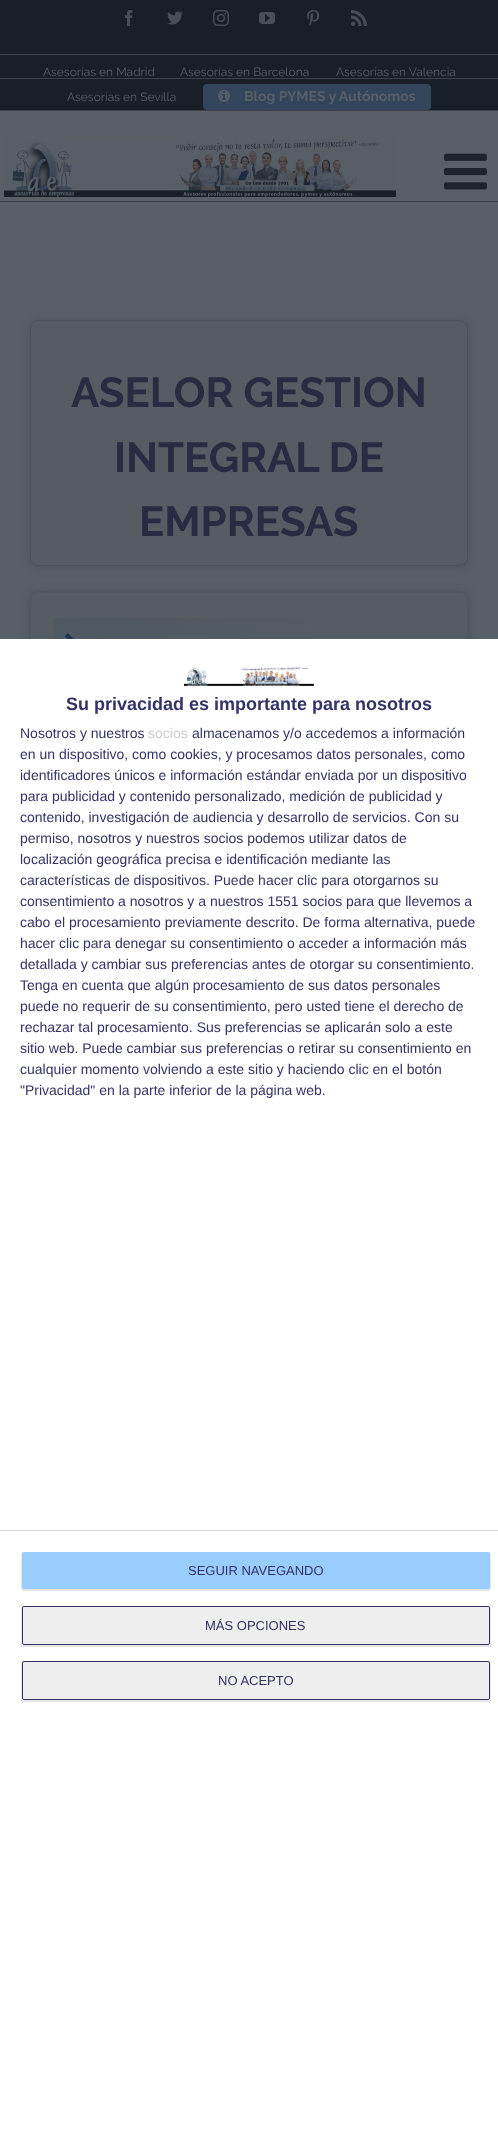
async function draw(canvas) {
  canvas.width = 498;
  canvas.height = 2131;
  const ctx = canvas.getContext('2d');
  ctx.miterLimit = 4;
  ctx.fontKerning = 'normal';
  function label(s, x, y, font, color) {
    ctx.font = font;
    ctx.fillStyle = color;
    ctx.fillText(s, x, y);
  }
  function rect(x, y, w, h, color) {
    ctx.fillStyle = color;
    ctx.fillRect(x, y, w, h);
  }
  function roundedRect(x, y, w, h, r, color) {
    ctx.fillStyle = color;
    ctx.beginPath();
    ctx.roundRect(x, y, w, h, r);
    ctx.fill();
  }
  async function image(src, x, y, w, h) {
    const img = new Image();
    img.src = src;
    await img.decode();
    ctx.drawImage(img, x, y, w, h);
  }
  let gradient, path;

  rect(0, 0, 498, 2131, '#595f67');
  rect(0, 0, 498, 110, '#191f27');
  rect(0, 110, 498, 1, '#3d434b');
  rect(0, 54, 498, 1, '#3d434b');
  await image('assets/img1.png', 125, 10, 8, 16);
  await image('assets/img2.png', 167, 11, 16, 14);
  await image('assets/img3.png', 213, 10, 16, 16);
  await image('assets/img4.png', 259, 12, 16, 12);
  await image('assets/img5.png', 306, 10, 14, 16);
  await image('assets/img6.png', 351, 10, 16, 16);
  label('Asesorías en Madrid', 43, 76, '12px Raleway', '#595f67');
  label('Asesorías en Barcelona', 180, 76, '12px Raleway', '#595f67');
  label('Asesorías en Valencia', 336, 76, '12px Raleway', '#595f67');
  rect(0, 78, 498, 1, '#3d434b');
  label('Asesorías en Sevilla', 67, 101, '12px Raleway', '#595f67');
  roundedRect(203, 84, 228, 26, 4, '#32455a');
  await image('assets/img7.png', 218, 90, 12, 12);
  label('Blog PYMES y Autónomos', 244, 101, 'bold 14px Raleway', '#595f67');
  rect(0, 201, 498, 1, '#3d434b');
  await image('assets/img8.png', 4, 139, 392, 58);
  await image('assets/img9.png', 444, 153, 43, 37);
  ctx.fillStyle = '#191f2733';
  ctx.filter = 'blur(5.5px)';
  ctx.beginPath();
  ctx.roundRect(30, 321, 438, 246, 8);
  ctx.fill();
  ctx.filter = 'none';
  ctx.fillStyle = '#565c64';
  ctx.beginPath();
  ctx.roundRect(30.5, 320.5, 437, 245, 7.5);
  ctx.fill();
  ctx.strokeStyle = '#4c525a';
  ctx.stroke();
  label('ASELOR GESTION', 71, 407, 'bold 42px Raleway', '#262c41');
  label('INTEGRAL DE', 114, 472, 'bold 42px Raleway', '#262c41');
  label('EMPRESAS', 139, 536, 'bold 42px Raleway', '#262c41');
  ctx.fillStyle = '#191f2733';
  ctx.filter = 'blur(5.5px)';
  ctx.beginPath();
  ctx.roundRect(30, 592, 438, 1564, 8);
  ctx.fill();
  ctx.filter = 'none';
  ctx.fillStyle = '#565c64';
  path = new Path2D('M38 593H460C464 593 467 596 467 599V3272C467 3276 464 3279 460 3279H38C34 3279 31 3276 31 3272V599C31 596 34 593 38 593Z');
  ctx.fill(path);
  ctx.beginPath();
  ctx.roundRect(30.5, 591.5, 437, 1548, 7.5);
  ctx.strokeStyle = '#51575f';
  ctx.stroke();
  gradient = ctx.createLinearGradient(54, 645, 444, 645);
  gradient.addColorStop(0, '#4f5964');
  gradient.addColorStop(1, '#565c64');
  ctx.fillStyle = gradient;
  ctx.fillRect(54, 618, 251, 21);
  await image('assets/img10.png', 65, 633, 9, 6);
  rect(0, 639, 498, 1492, '#fff');
  await image('assets/img11.png', 184, 666, 130, 20);
  label('Su privacidad es importante para nosotros', 66, 710, 'bold 18px Liberation Sans', '#336');
  label('Nosotros y nuestros', 20, 738, '14px Liberation Sans', '#336');
  label('socios', 148, 738, '14px Liberation Sans', '#ccc');
  label('almacenamos y/o accedemos a información', 192, 738, '14px Liberation Sans', '#336');
  label('en un dispositivo, como cookies, y procesamos datos personales, como', 20, 759, '14px Liberation Sans', '#336');
  label('identificadores únicos e información estándar enviada por un dispositivo', 20, 780, '14px Liberation Sans', '#336');
  label('para publicidad y contenido personalizado, medición de publicidad y', 20, 801, '14px Liberation Sans', '#336');
  label('contenido, investigación de audiencia y desarrollo de servicios. Con su', 20, 822, '14px Liberation Sans', '#336');
  label('permiso, nosotros y nuestros socios podemos utilizar datos de', 20, 843, '14px Liberation Sans', '#336');
  label('localización geográfica precisa e identificación mediante las', 20, 864, '14px Liberation Sans', '#336');
  label('características de dispositivos. Puede hacer clic para otorgarnos su', 20, 885, '14px Liberation Sans', '#336');
  label('consentimiento a nosotros y a nuestros 1551 socios para que llevemos a', 20, 906, '14px Liberation Sans', '#336');
  label('cabo el procesamiento previamente descrito. De forma alternativa, puede', 20, 927, '14px Liberation Sans', '#336');
  label('hacer clic para denegar su consentimiento o acceder a información más', 20, 948, '14px Liberation Sans', '#336');
  label('detallada y cambiar sus preferencias antes de otorgar su consentimiento.', 20, 969, '14px Liberation Sans', '#336');
  label('Tenga en cuenta que algún procesamiento de sus datos personales', 20, 990, '14px Liberation Sans', '#336');
  label('puede no requerir de su consentimiento, pero usted tiene el derecho de', 20, 1011, '14px Liberation Sans', '#336');
  label('rechazar tal procesamiento. Sus preferencias se aplicarán solo a este', 20, 1032, '14px Liberation Sans', '#336');
  label('sitio web. Puede cambiar sus preferencias o retirar su consentimiento en', 20, 1053, '14px Liberation Sans', '#336');
  label('cualquier momento volviendo a este sitio y haciendo clic en el botón', 20, 1074, '14px Liberation Sans', '#336');
  label('"Privacidad" en la parte inferior de la página web.', 20, 1095, '14px Liberation Sans', '#336');
  rect(0, 1530, 498, 1, '#d8d8d8');
  ctx.fillStyle = '#0000001a';
  ctx.filter = 'blur(0.5px)';
  ctx.beginPath();
  ctx.roundRect(21, 1552, 470, 39, 3);
  ctx.fill();
  ctx.filter = 'none';
  roundedRect(22, 1552, 468, 37, 2, '#9cf');
  label('SEGUIR NAVEGANDO', 188, 1575, '13px Liberation Sans', '#336');
  ctx.fillStyle = '#0000001a';
  ctx.filter = 'blur(0.5px)';
  ctx.beginPath();
  ctx.roundRect(21, 1606, 470, 41, 3);
  ctx.fill();
  ctx.filter = 'none';
  ctx.fillStyle = '#eee';
  ctx.beginPath();
  ctx.roundRect(22.5, 1606.5, 467, 38, 1.5);
  ctx.fill();
  ctx.strokeStyle = '#336';
  ctx.stroke();
  label('MÁS OPCIONES', 205, 1630, '13px Liberation Sans', '#336');
  ctx.fillStyle = '#0000001a';
  ctx.filter = 'blur(0.5px)';
  ctx.beginPath();
  ctx.roundRect(21, 1661, 470, 41, 3);
  ctx.fill();
  ctx.filter = 'none';
  ctx.fillStyle = '#eee';
  ctx.beginPath();
  ctx.roundRect(22.5, 1661.5, 467, 38, 1.5);
  ctx.fill();
  ctx.stroke();
  label('NO ACEPTO', 218, 1685, '13px Liberation Sans', '#336');
}

draw(document.querySelector('canvas'));
